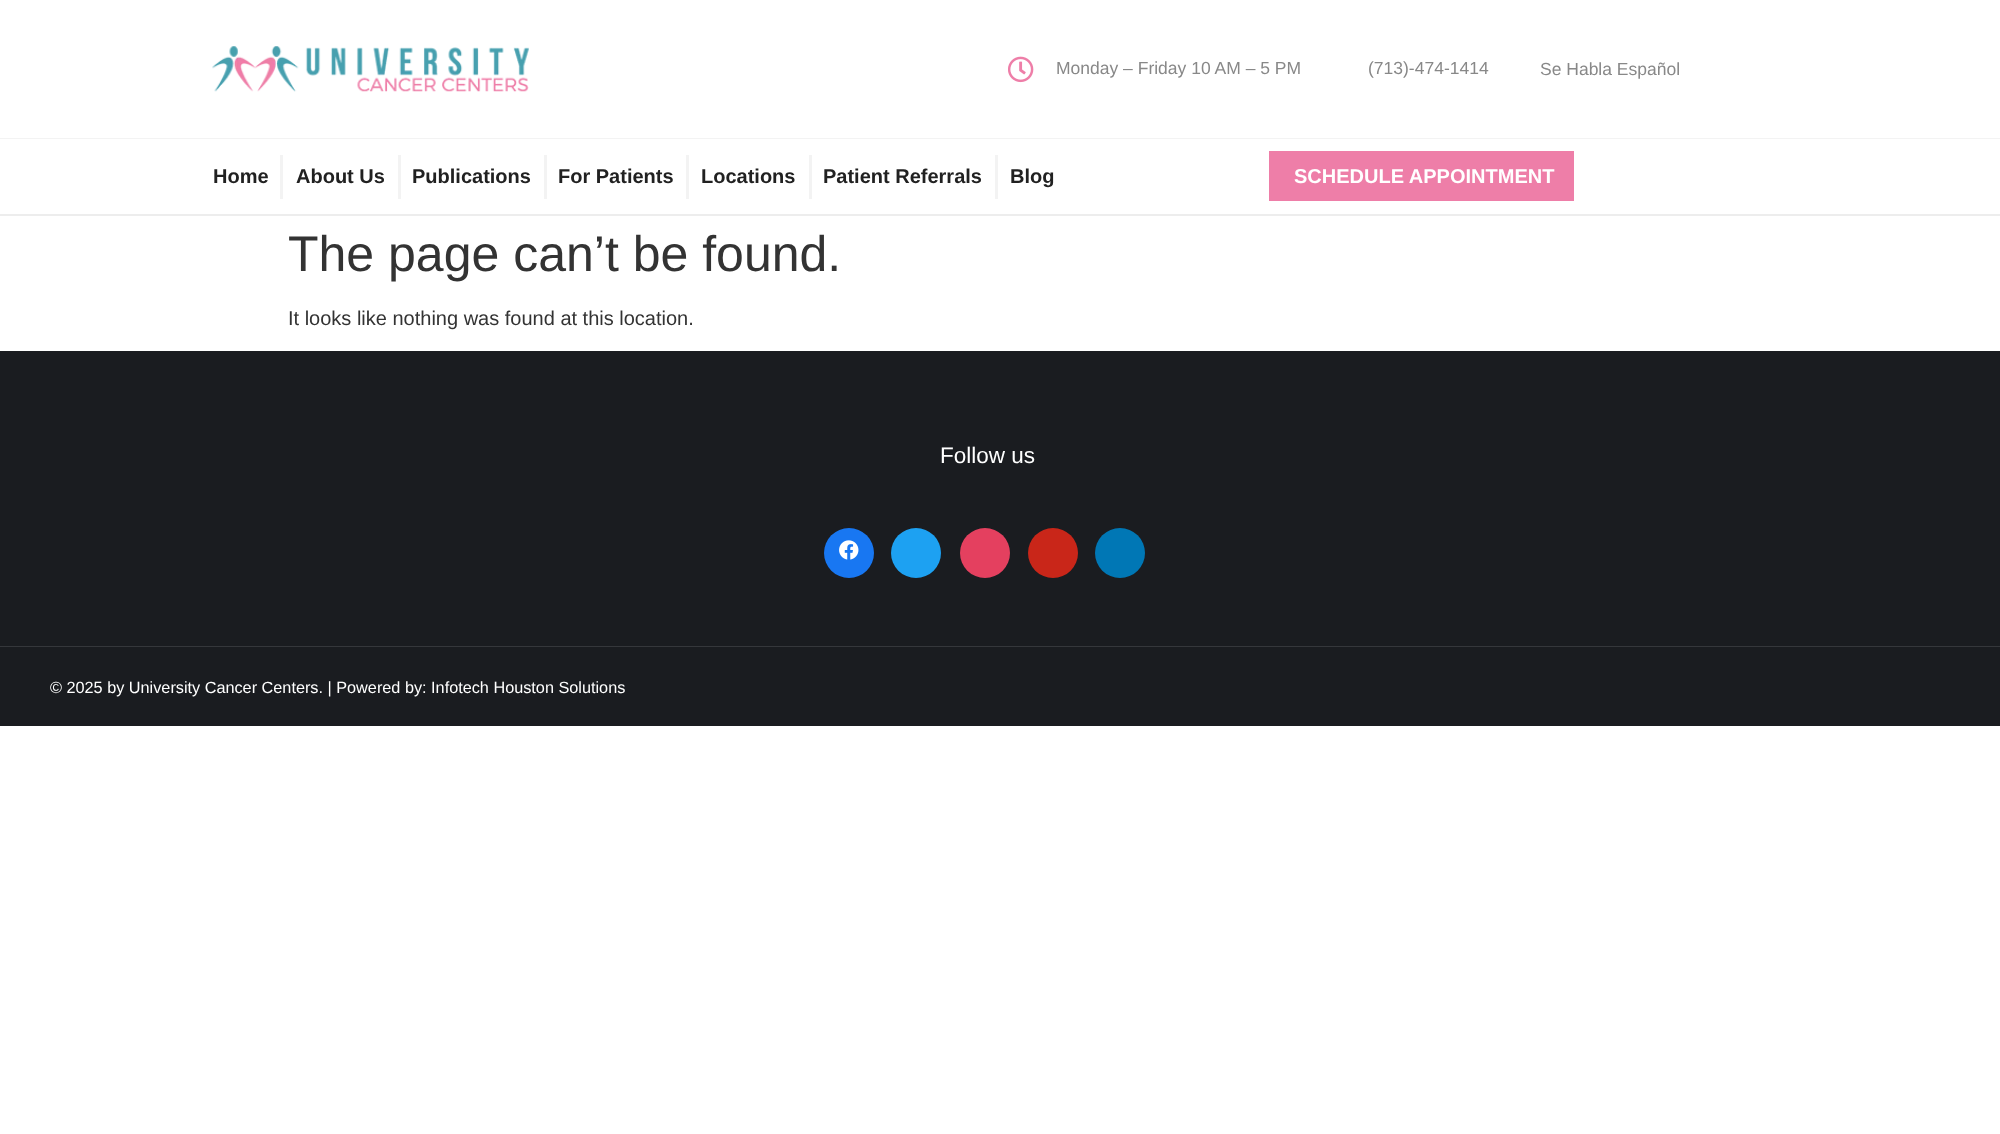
async function draw(canvas) {
  canvas.width = 2000;
  canvas.height = 1134;
  const ctx = canvas.getContext('2d');
  ctx.miterLimit = 4;
  ctx.fontKerning = 'normal';
  function label(s, x, y, font, color) {
    ctx.font = font;
    ctx.fillStyle = color;
    ctx.fillText(s, x, y);
  }
  function rect(x, y, w, h, color) {
    ctx.fillStyle = color;
    ctx.fillRect(x, y, w, h);
  }
  async function image(src, x, y, w, h) {
    const img = new Image();
    img.src = src;
    await img.decode();
    ctx.drawImage(img, x, y, w, h);
  }
  let path;

  rect(0, 0, 2000, 1134, '#fff');
  await image('assets/img1.png', 212, 46, 317, 46);
  await image('assets/img2.png', 1008, 56, 26, 27);
  label('Monday – Friday 10 AM – 5 PM', 1056, 74, '17.5px Liberation Sans', '#888');
  label('(713)-474-1414', 1368, 74, '17.5px Liberation Sans', '#888');
  label('Se Habla Español', 1540, 75, '17.5px Liberation Sans', '#888');
  ctx.fillStyle = '#ededed';
  path = new Path2D('M-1 138V216H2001V138H2000V214H0V138Z');
  ctx.fill(path);
  rect(0, 138, 2000, 1, '#f3f3f3');
  label('Home', 213, 183, 'bold 20px Liberation Sans', '#212121');
  rect(280, 155, 3, 44, '#f3f3f3');
  label('About Us', 296, 183, 'bold 20px Liberation Sans', '#212121');
  rect(398, 155, 3, 44, '#f3f3f3');
  label('Publications', 412, 183, 'bold 20px Liberation Sans', '#212121');
  rect(544, 155, 3, 44, '#f3f3f3');
  label('For Patients', 558, 183, 'bold 20px Liberation Sans', '#212121');
  rect(686, 155, 3, 44, '#f3f3f3');
  label('Locations', 701, 183, 'bold 20px Liberation Sans', '#212121');
  rect(809, 155, 3, 44, '#f3f3f3');
  label('Patient Referrals', 823, 183, 'bold 20px Liberation Sans', '#212121');
  rect(995, 155, 3, 44, '#f3f3f3');
  label('Blog', 1010, 183, 'bold 20px Liberation Sans', '#212121');
  rect(1269, 151, 305, 50, '#ee7ea8');
  label('SCHEDULE APPOINTMENT', 1294, 183, 'bold 20px Liberation Sans', '#fff');
  label('The page can’t be found.', 288, 271, '50px Liberation Sans', '#333');
  label('It looks like nothing was found at this location.', 288, 325, '20px Liberation Sans', '#333');
  rect(0, 351, 2000, 295, '#1a1c20');
  label('Follow us', 940, 463, '22.5px Liberation Sans', '#fff');
  ctx.fillStyle = '#1877f2';
  ctx.beginPath();
  ctx.arc(849, 553, 25, 0, 2 * Math.PI);
  ctx.fill();
  await image('assets/img3.png', 839, 540, 20, 20);
  ctx.fillStyle = '#1da1f2';
  ctx.beginPath();
  ctx.arc(916, 553, 25, 0, 2 * Math.PI);
  ctx.fill();
  ctx.fillStyle = '#e4405f';
  ctx.beginPath();
  ctx.arc(985, 553, 25, 0, 2 * Math.PI);
  ctx.fill();
  ctx.fillStyle = '#c92619';
  ctx.beginPath();
  ctx.arc(1053, 553, 25, 0, 2 * Math.PI);
  ctx.fill();
  ctx.fillStyle = '#0077b5';
  ctx.beginPath();
  ctx.arc(1120, 553, 25, 0, 2 * Math.PI);
  ctx.fill();
  rect(0, 647, 2000, 79, '#1a1c20');
  rect(0, 646, 2000, 1, '#35373b');
  label('© 2025 by University Cancer Centers. | Powered by: Infotech Houston Solutions', 50, 693, '16.25px Liberation Sans', '#fff');
}

draw(document.querySelector('canvas'));
